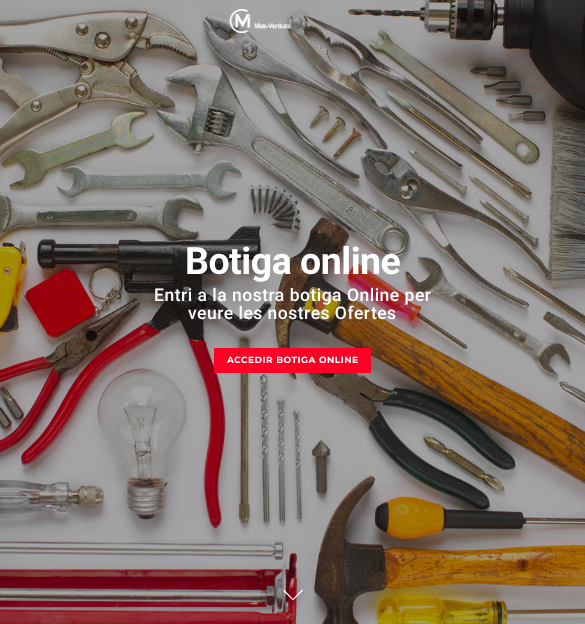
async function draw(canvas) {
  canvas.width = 585;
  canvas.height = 624;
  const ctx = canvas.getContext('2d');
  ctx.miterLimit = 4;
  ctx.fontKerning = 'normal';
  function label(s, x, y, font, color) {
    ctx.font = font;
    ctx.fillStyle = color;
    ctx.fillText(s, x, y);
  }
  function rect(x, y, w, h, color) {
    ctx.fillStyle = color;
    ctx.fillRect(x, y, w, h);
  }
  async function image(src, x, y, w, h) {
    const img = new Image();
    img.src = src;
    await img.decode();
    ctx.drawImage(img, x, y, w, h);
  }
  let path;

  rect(0, 0, 585, 624, '#fff');
  await image('assets/img2.png', 0, 0, 585, 624);
  await image('assets/img1.png', 229, 9, 62, 24);
  ctx.letterSpacing = '-0.5px';
  label('Botiga online', 185, 274, 'bold 37.5px Roboto', '#fff');
  ctx.letterSpacing = '0.5px';
  label('Entri a la nostra botiga Online per', 154, 301, '500 17.5px Roboto', '#fff');
  label('veure les nostres Ofertes', 188, 319, '500 17.5px Roboto', '#fff');
  rect(214, 348, 157, 25, '#fd0025');
  label('ACCEDIR BOTIGA ONLINE', 227, 363, '100 9px Montserrat', '#fff');
  path = new Path2D('M302 589.5L303 590.5L293 600.5L283 590.5L284 589.5L293 599Z');
  ctx.fill(path);
}

draw(document.querySelector('canvas'));
